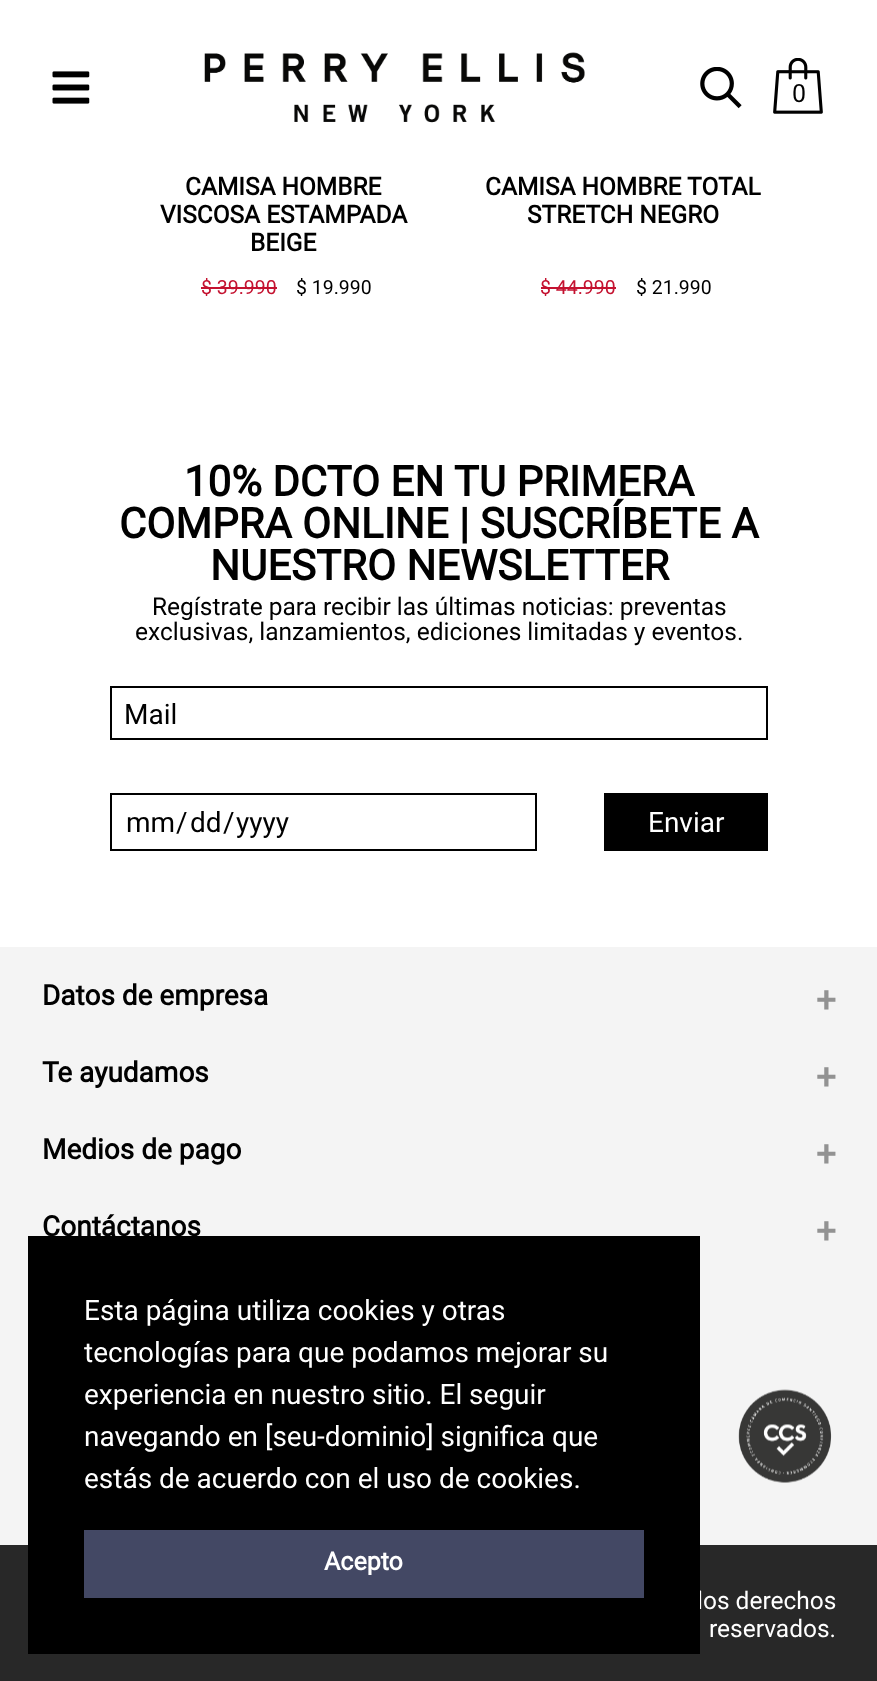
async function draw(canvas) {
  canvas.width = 877;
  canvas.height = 1681;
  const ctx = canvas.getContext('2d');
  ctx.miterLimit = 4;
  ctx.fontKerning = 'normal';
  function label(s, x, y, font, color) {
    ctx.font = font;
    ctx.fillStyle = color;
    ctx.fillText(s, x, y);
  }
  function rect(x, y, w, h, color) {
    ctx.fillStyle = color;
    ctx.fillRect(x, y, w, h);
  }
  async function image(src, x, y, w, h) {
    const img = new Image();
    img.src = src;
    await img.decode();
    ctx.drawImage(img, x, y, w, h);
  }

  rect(0, 0, 877, 1681, '#fff');
  await image('assets/img1.png', 52, 71, 38, 33);
  await image('assets/img2.png', 204, 52, 381, 71);
  await image('assets/img3.png', 700, 67, 42, 42);
  await image('assets/img4.png', 773, 58, 50, 56);
  label('0', 792, 102, '25px Roboto', '#000');
  label('CAMISA HOMBRE', 185, 195, 'bold 24.5px Roboto', '#000');
  label('VISCOSA ESTAMPADA', 160, 223, 'bold 24.5px Roboto', '#000');
  label('BEIGE', 250, 251, 'bold 24.5px Roboto', '#000');
  label('$ 39.990', 201, 294, '19.5px Roboto', '#c41230');
  rect(201, 287, 76, 2, '#c41230');
  label('$ 19.990', 296, 294, '19.5px Roboto', '#000');
  label('CAMISA HOMBRE TOTAL', 485, 195, 'bold 24.5px Roboto', '#000');
  label('STRETCH NEGRO', 527, 223, 'bold 24.5px Roboto', '#000');
  label('$ 44.990', 540, 294, '19.5px Roboto', '#c41230');
  rect(541, 287, 75, 2, '#c41230');
  label('$ 21.990', 636, 294, '19.5px Roboto', '#000');
  label('10% DCTO EN TU PRIMERA', 184, 496, 'bold 42px Roboto', '#000');
  label('COMPRA ONLINE | SUSCRÍBETE A', 119, 538, 'bold 42px Roboto', '#000');
  label('NUESTRO NEWSLETTER', 210, 580, 'bold 42px Roboto', '#000');
  label('Regístrate para recibir las últimas noticias: preventas', 152, 615, '24.5px Roboto', '#000');
  label('exclusivas, lanzamientos, ediciones limitadas y eventos.', 135, 640, '24.5px Roboto', '#000');
  ctx.strokeStyle = '#000';
  ctx.lineWidth = 2;
  ctx.strokeRect(111, 687, 656, 52);
  label('Mail', 124, 724, '28px Roboto', '#000');
  ctx.strokeRect(111, 794, 425, 56);
  label('mm', 126, 832, '28px Roboto', '#000');
  label('/', 176, 832, '28px Roboto', '#000');
  label('dd', 190, 832, '28px Roboto', '#000');
  label('/', 223, 832, '28px Roboto', '#000');
  label('yyyy', 236, 832, '28px Roboto', '#000');
  rect(604, 793, 164, 58, '#000');
  label('Enviar', 648, 832, '28px Roboto', '#fff');
  rect(0, 947, 877, 598, '#f4f4f4');
  label('Datos de empresa', 42, 1005, 'bold 28px Roboto', '#000');
  label('+', 816, 1012, 'bold 35px Roboto', '#929292');
  label('Te ayudamos', 42, 1082, 'bold 28px Roboto', '#000');
  label('+', 816, 1089, 'bold 35px Roboto', '#929292');
  label('Medios de pago', 42, 1159, 'bold 28px Roboto', '#000');
  label('+', 816, 1166, 'bold 35px Roboto', '#929292');
  label('Contáctanos', 42, 1236, 'bold 28px Roboto', '#000');
  label('+', 816, 1243, 'bold 35px Roboto', '#929292');
  await image('assets/img5.png', 738, 1389, 94, 94);
  rect(0, 1545, 877, 136, '#282828');
  label('los derechos', 697, 1609, '24.5px Roboto', '#fff');
  label('reservados.', 709, 1637, '24.5px Roboto', '#fff');
  rect(28, 1236, 672, 418, '#000');
  label('Esta página utiliza cookies y otras', 84, 1320, '28px Roboto', '#fff');
  label('tecnologías para que podamos mejorar su', 84, 1362, '28px Roboto', '#fff');
  label('experiencia en nuestro sitio. El seguir', 84, 1404, '28px Roboto', '#fff');
  label('navegando en [seu-dominio] significa que', 84, 1446, '28px Roboto', '#fff');
  label('estás de acuerdo con el uso de cookies.', 84, 1488, '28px Roboto', '#fff');
  rect(84, 1530, 560, 68, '#434864');
  label('Acepto', 324, 1570, 'bold 25px Roboto', '#fff');
}

draw(document.querySelector('canvas'));
